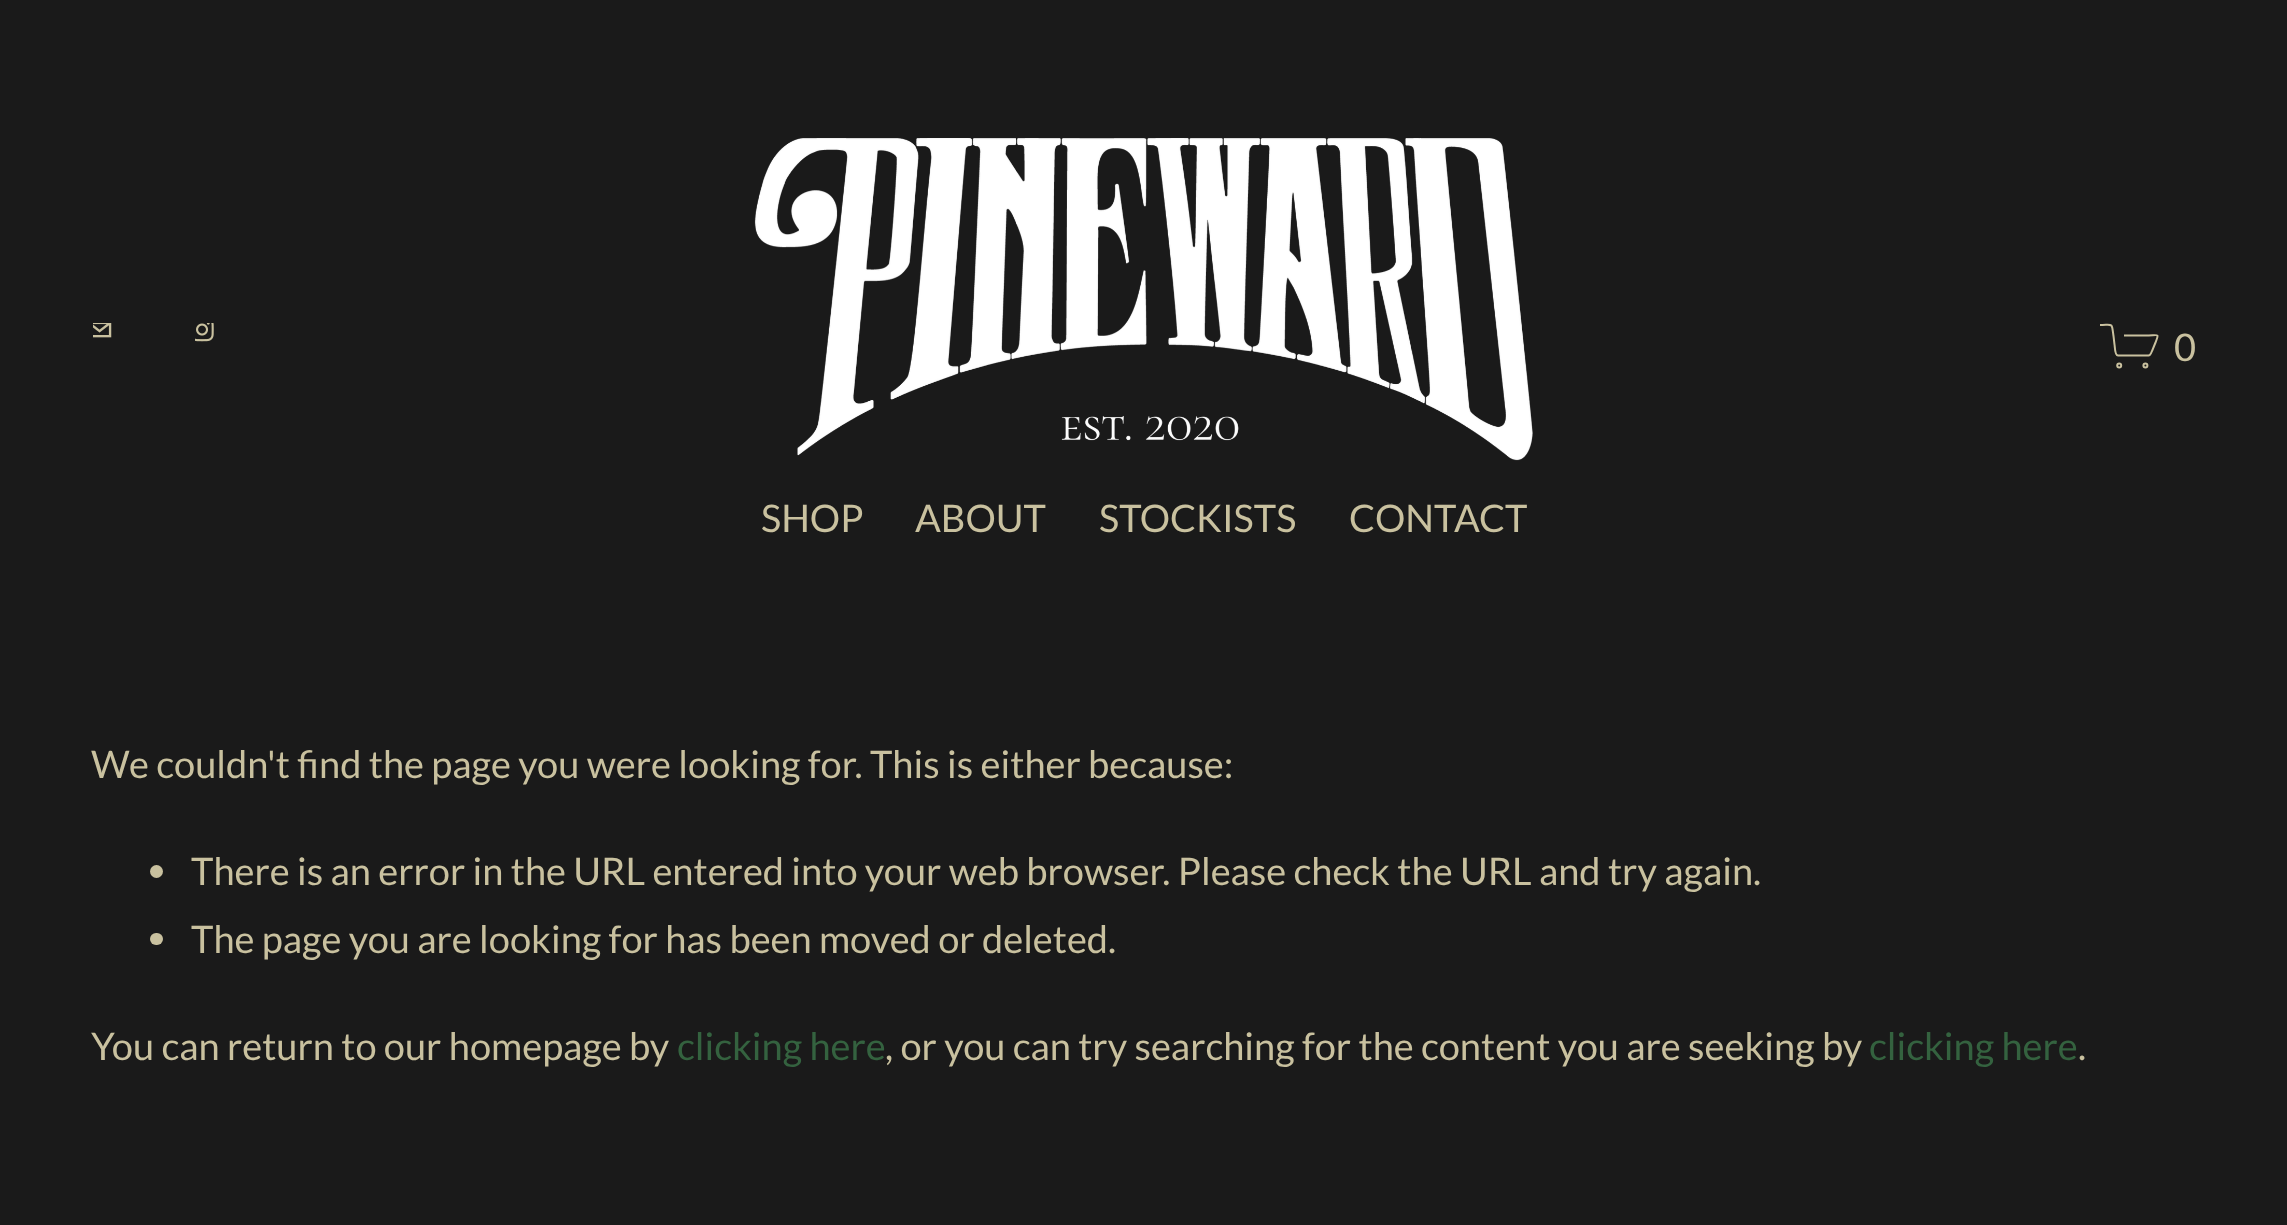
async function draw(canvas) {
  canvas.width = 2287;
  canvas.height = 1225;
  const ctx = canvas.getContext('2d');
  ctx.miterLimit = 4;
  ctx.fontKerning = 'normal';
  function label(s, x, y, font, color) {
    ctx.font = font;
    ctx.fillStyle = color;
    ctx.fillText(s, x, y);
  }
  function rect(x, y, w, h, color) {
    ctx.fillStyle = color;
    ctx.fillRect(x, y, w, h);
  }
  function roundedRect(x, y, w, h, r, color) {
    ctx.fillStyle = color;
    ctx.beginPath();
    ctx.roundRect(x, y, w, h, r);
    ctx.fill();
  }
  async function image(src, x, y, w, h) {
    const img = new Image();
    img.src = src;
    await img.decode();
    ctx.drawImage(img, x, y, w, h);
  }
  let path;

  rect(0, 0, 2287, 1225, '#1a1a1a');
  await image('assets/img1.png', 93, 323, 19, 15);
  await image('assets/img2.png', 195, 323, 19, 19);
  ctx.beginPath();
  ctx.arc(2145.4, 365.4, 2, 0, 2 * Math.PI);
  ctx.strokeStyle = '#c9c19f';
  ctx.lineWidth = 2;
  ctx.stroke();
  ctx.beginPath();
  ctx.arc(2119.2, 365.4, 2, 0, 2 * Math.PI);
  ctx.stroke();
  path = new Path2D('M2100 325C2113.5 325 2111.5 322 2113.5 336L2114.5 344.5C2115 346 2114.5 355.5 2118 355.5H2143C2149.5 355.5 2150 356.5 2152 351L2155.5 342.5C2159.5 332.5 2158.5 335.5 2145.5 335.5H2124');
  ctx.stroke(path);
  label('0', 2174, 361, '38px Lato', '#c9c19f');
  await image('assets/img3.png', 754, 138, 779, 323);
  label('SHOP', 761, 532, '38px Lato', '#c9c19f');
  label('ABOUT', 915, 532, '38px Lato', '#c9c19f');
  label('STOCKISTS', 1099, 532, '38px Lato', '#c9c19f');
  label('CONTACT', 1349, 532, '38px Lato', '#c9c19f');
  label('We couldn\'t find the page you were looking for. This is either because:', 91, 778, '38px Lato', '#c9c19f');
  ctx.beginPath();
  ctx.arc(156.5, 871.5, 6.5, 0, 2 * Math.PI);
  ctx.fill();
  label('There is an error in the URL entered into your web browser. Please check the URL and try again.', 191, 885, '38px Lato', '#c9c19f');
  roundedRect(150, 933, 13, 12, 6, '#c9c19f');
  label('The page you are looking for has been moved or deleted.', 191, 953, '38px Lato', '#c9c19f');
  label('You can return to our homepage by', 91, 1060, '38px Lato', '#c9c19f');
  label('clicking here', 677, 1060, '38px Lato', '#34623f');
  label(', or you can try searching for the', 885, 1060, '38px Lato', '#c9c19f');
  label('content you are seeking by', 1421, 1060, '38px Lato', '#c9c19f');
  label('clicking here', 1869, 1060, '38px Lato', '#34623f');
  label('.', 2078, 1060, '38px Lato', '#c9c19f');
}

draw(document.querySelector('canvas'));
